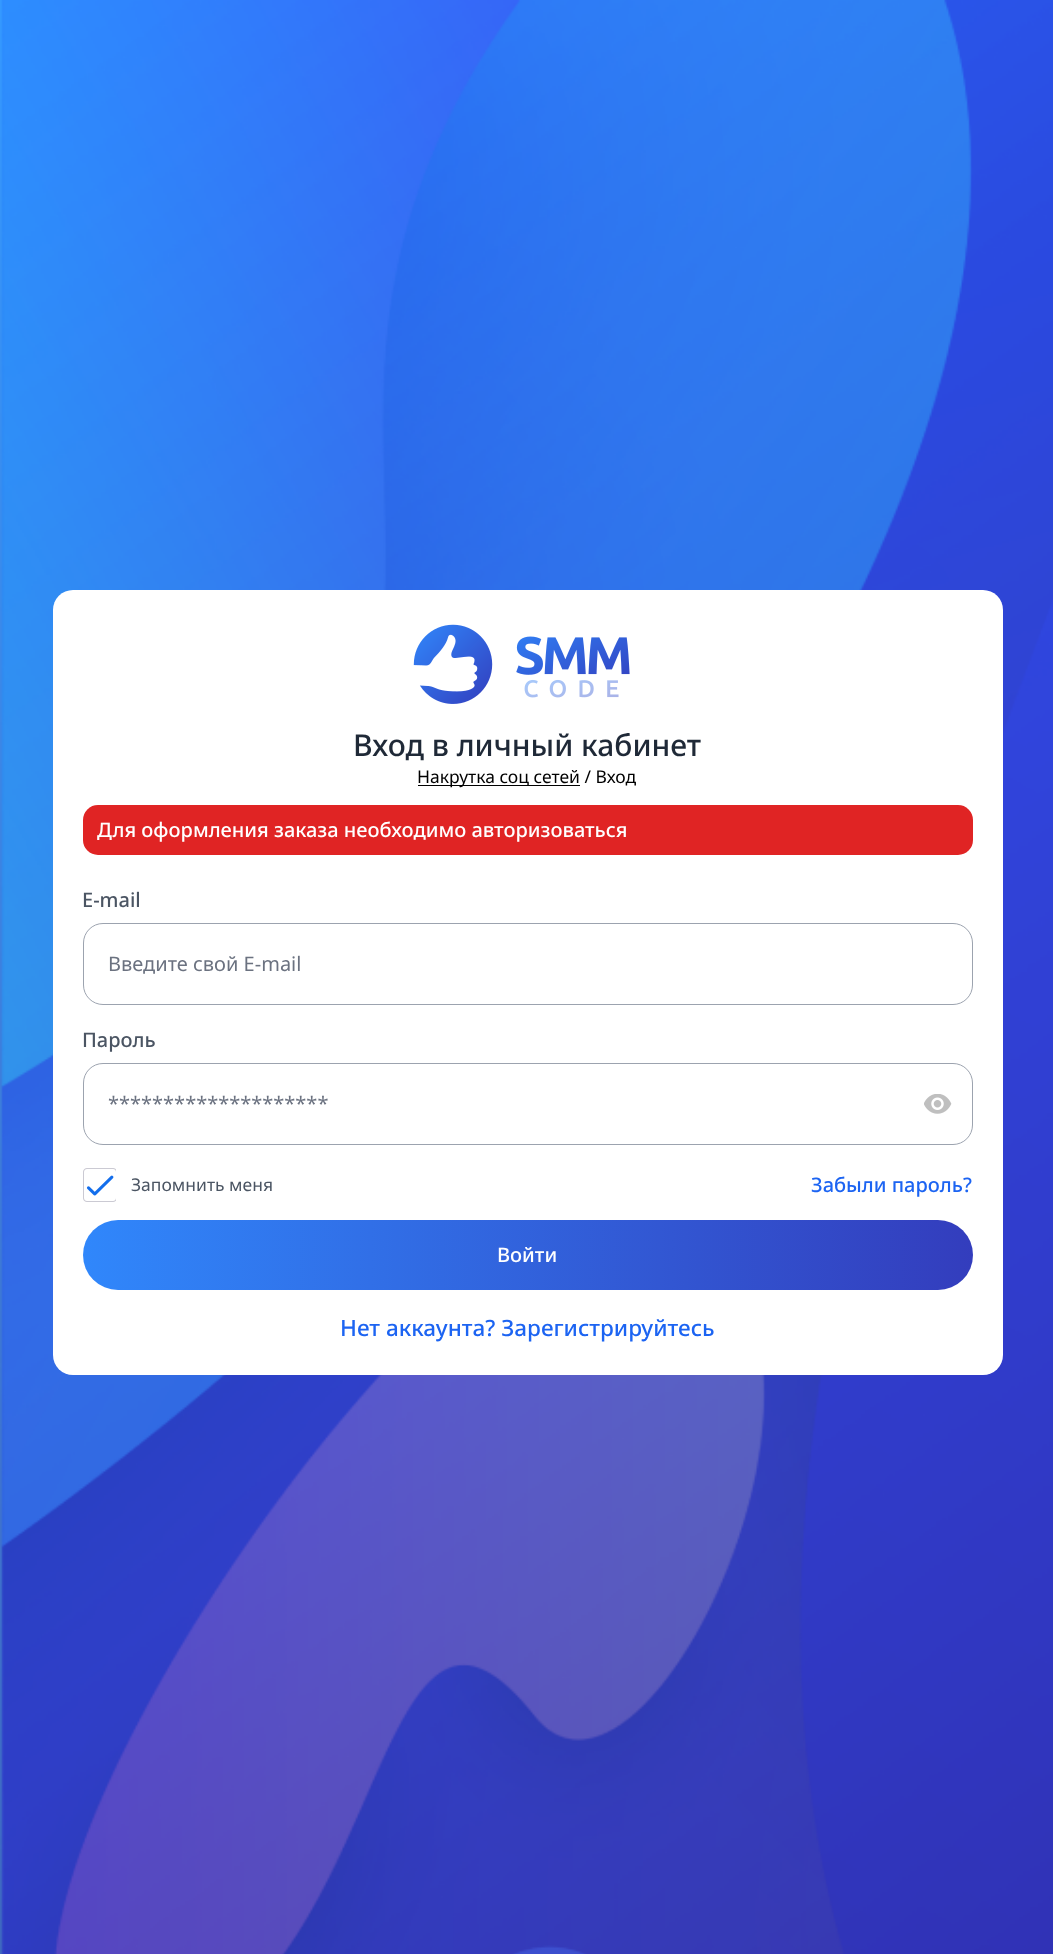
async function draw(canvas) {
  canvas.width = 1053;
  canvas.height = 1954;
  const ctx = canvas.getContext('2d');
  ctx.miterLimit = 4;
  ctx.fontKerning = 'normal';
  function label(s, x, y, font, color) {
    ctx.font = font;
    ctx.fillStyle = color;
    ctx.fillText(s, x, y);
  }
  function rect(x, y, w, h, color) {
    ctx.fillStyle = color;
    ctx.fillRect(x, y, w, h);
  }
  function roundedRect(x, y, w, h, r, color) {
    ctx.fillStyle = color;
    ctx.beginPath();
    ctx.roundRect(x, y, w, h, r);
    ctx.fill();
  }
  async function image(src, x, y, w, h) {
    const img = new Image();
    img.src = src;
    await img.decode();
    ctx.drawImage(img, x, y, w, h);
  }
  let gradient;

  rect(0, 0, 1053, 1954, '#fff');
  await image('assets/img1.png', 0, 0, 1053, 1954);
  roundedRect(53, 590, 950, 785, 20, '#fff');
  await image('assets/img2.png', 413, 624, 217, 80);
  label('Вход в личный кабинет', 353, 756, '500 30px Noto Sans', '#1f2937');
  rect(418, 785, 162, 1, '#000');
  label('Накрутка соц сетей / Вход', 417, 783, '17.5px Noto Sans', '#000');
  roundedRect(83, 805, 890, 50, 15, '#e02424');
  label('Для оформления заказа необходимо авторизоваться', 97, 837, '500 20px Noto Sans', '#fff');
  label('E-mail', 82, 907, '500 20px Noto Sans', '#4b5563');
  ctx.beginPath();
  ctx.roundRect(83.5, 923.5, 889, 81, 19.5);
  ctx.strokeStyle = '#9ca3af';
  ctx.stroke();
  label('Введите свой E-mail', 108, 971, '20px Noto Sans', '#6b7280');
  label('Пароль', 82, 1047, '500 20px Noto Sans', '#4b5563');
  ctx.beginPath();
  ctx.roundRect(83.5, 1063.5, 889, 81, 19.5);
  ctx.stroke();
  label('********************', 108, 1111, '20px Noto Sans', '#6b7280');
  await image('assets/img3.png', 924, 1094, 28, 20);
  await image('assets/img4.png', 83, 1168, 33, 34);
  label('Запомнить меня', 131, 1191, '17.5px Noto Sans', '#4b5563');
  label('Забыли пароль?', 811, 1192, '500 20px Noto Sans', '#1c64f2');
  gradient = ctx.createLinearGradient(83, 1255, 973, 1255);
  gradient.addColorStop(0, '#3087fb');
  gradient.addColorStop(1, '#333dbd');
  ctx.fillStyle = gradient;
  ctx.beginPath();
  ctx.roundRect(83, 1220, 890, 70, 35);
  ctx.fill();
  label('Войти', 497, 1262, '500 20px Noto Sans', '#fff');
  label('Нет аккаунта? Зарегистрируйтесь', 340, 1336, '500 22.5px Noto Sans', '#1c64f2');
}

draw(document.querySelector('canvas'));
